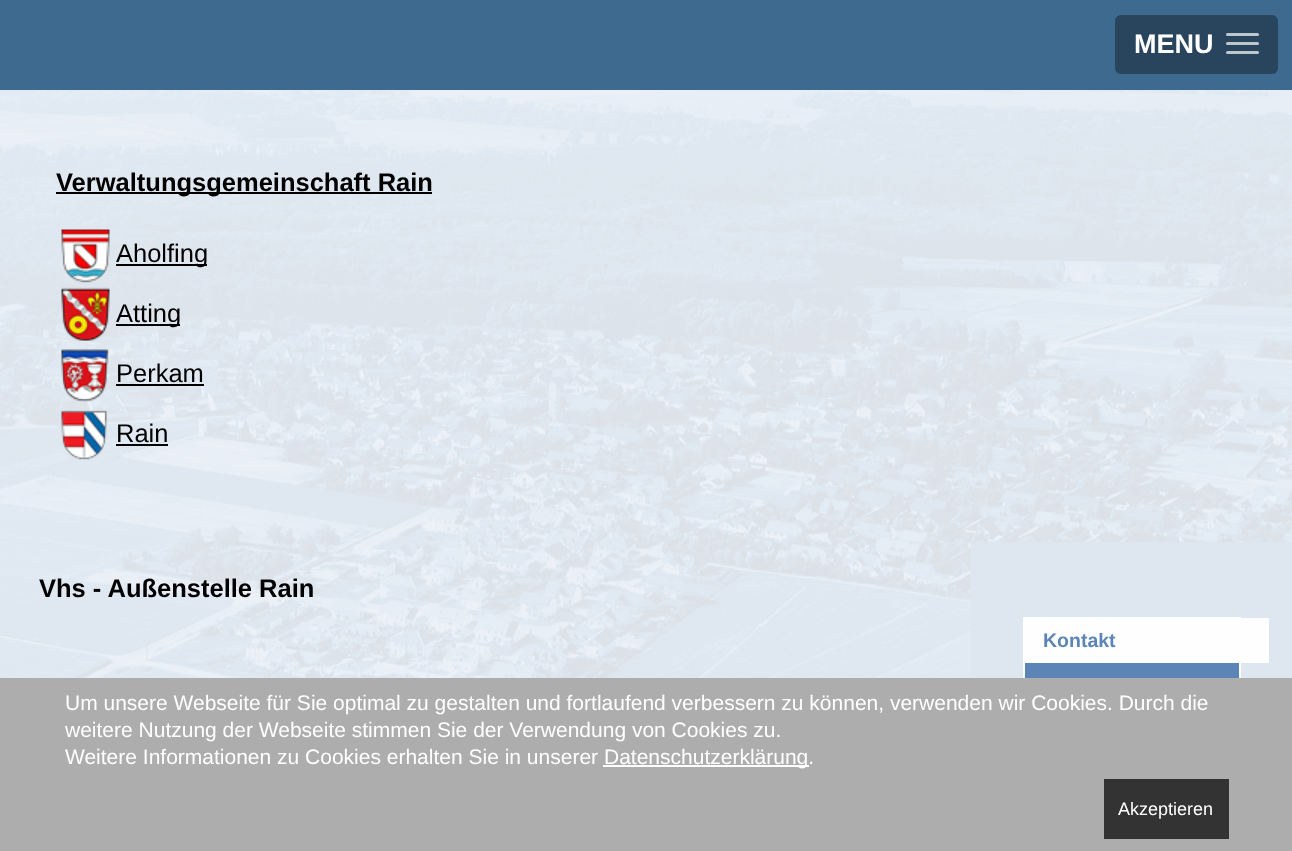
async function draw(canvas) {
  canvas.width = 1292;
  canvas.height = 851;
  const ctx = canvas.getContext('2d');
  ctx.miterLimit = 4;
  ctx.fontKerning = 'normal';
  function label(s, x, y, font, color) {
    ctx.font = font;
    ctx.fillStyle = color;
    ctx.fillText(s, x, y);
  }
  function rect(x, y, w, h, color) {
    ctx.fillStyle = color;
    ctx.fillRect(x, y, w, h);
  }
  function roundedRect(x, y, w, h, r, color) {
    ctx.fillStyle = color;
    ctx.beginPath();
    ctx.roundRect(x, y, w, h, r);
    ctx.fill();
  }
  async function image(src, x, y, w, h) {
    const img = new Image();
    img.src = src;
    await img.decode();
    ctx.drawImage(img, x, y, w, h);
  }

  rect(0, 0, 1292, 851, '#3e6a8f');
  roundedRect(1115, 15, 163, 59, 6, '#28455d');
  label('MENU', 1134, 53, 'bold 27px Liberation Sans', '#fff');
  roundedRect(1226, 33, 33, 3, 1.5, '#bfc7ce');
  roundedRect(1226, 42, 33, 3, 1.5, '#bfc7ce');
  roundedRect(1226, 51, 33, 3, 1.5, '#bfc7ce');
  await image('assets/img1.png', 0, 90, 1292, 588);
  rect(0, 90, 1292, 452, '#ffffffb3');
  rect(56, 192, 376, 2, '#000');
  label('Verwaltungsgemeinschaft Rain', 56, 191, 'bold 25.5px Liberation Sans', '#000');
  await image('assets/img2.png', 61, 229, 49, 54);
  rect(116, 264, 91, 2, '#000');
  label('Aholfing', 116, 262, '25.5px Liberation Sans', '#000');
  await image('assets/img3.png', 61, 287, 49, 54);
  rect(116, 324, 64, 2, '#000');
  label('Atting', 116, 322, '25.5px Liberation Sans', '#000');
  await image('assets/img4.png', 61, 349, 48, 53);
  label('Perkam', 116, 382, '25.5px Liberation Sans', '#000');
  rect(116, 384, 88, 2, '#000');
  await image('assets/img5.png', 61, 410, 46, 50);
  label('Rain', 116, 442, '25.5px Liberation Sans', '#000');
  rect(116, 444, 52, 2, '#000');
  rect(0, 542, 971, 136, '#ffffffb3');
  label('Vhs - Außenstelle Rain', 39, 597, 'bold 25.5px Liberation Sans', '#000');
  rect(971, 542, 321, 136, '#dee6f0');
  rect(1025, 663, 214, 15, '#5b85b7');
  ctx.strokeStyle = '#fff';
  ctx.lineWidth = 2;
  ctx.strokeRect(1024, 618, 216, 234);
  rect(1025, 619, 13, 44, '#fefefe');
  rect(1038, 618, 231, 45, '#fefefe');
  label('Kontakt', 1043, 647, 'bold 19.5px Liberation Sans', '#5b85b7');
  rect(0, 678, 1292, 173, '#adadad');
  label('Um unsere Webseite für Sie optimal zu gestalten und fortlaufend verbessern zu können, verwenden wir Cookies. Durch die', 65, 710, '21px Liberation Sans', '#fff');
  label('weitere Nutzung der Webseite stimmen Sie der Verwendung von Cookies zu.', 65, 737, '21px Liberation Sans', '#fff');
  label('Weitere Informationen zu Cookies erhalten Sie in unserer', 65, 764, '21px Liberation Sans', '#fff');
  rect(603, 765, 206, 2, '#fff');
  label('Datenschutzerklärung.', 604, 764, '21px Liberation Sans', '#fff');
  rect(1104, 779, 125, 60, '#333');
  label('Akzeptieren', 1118, 815, '18px Liberation Sans', '#fff');
}

draw(document.querySelector('canvas'));
